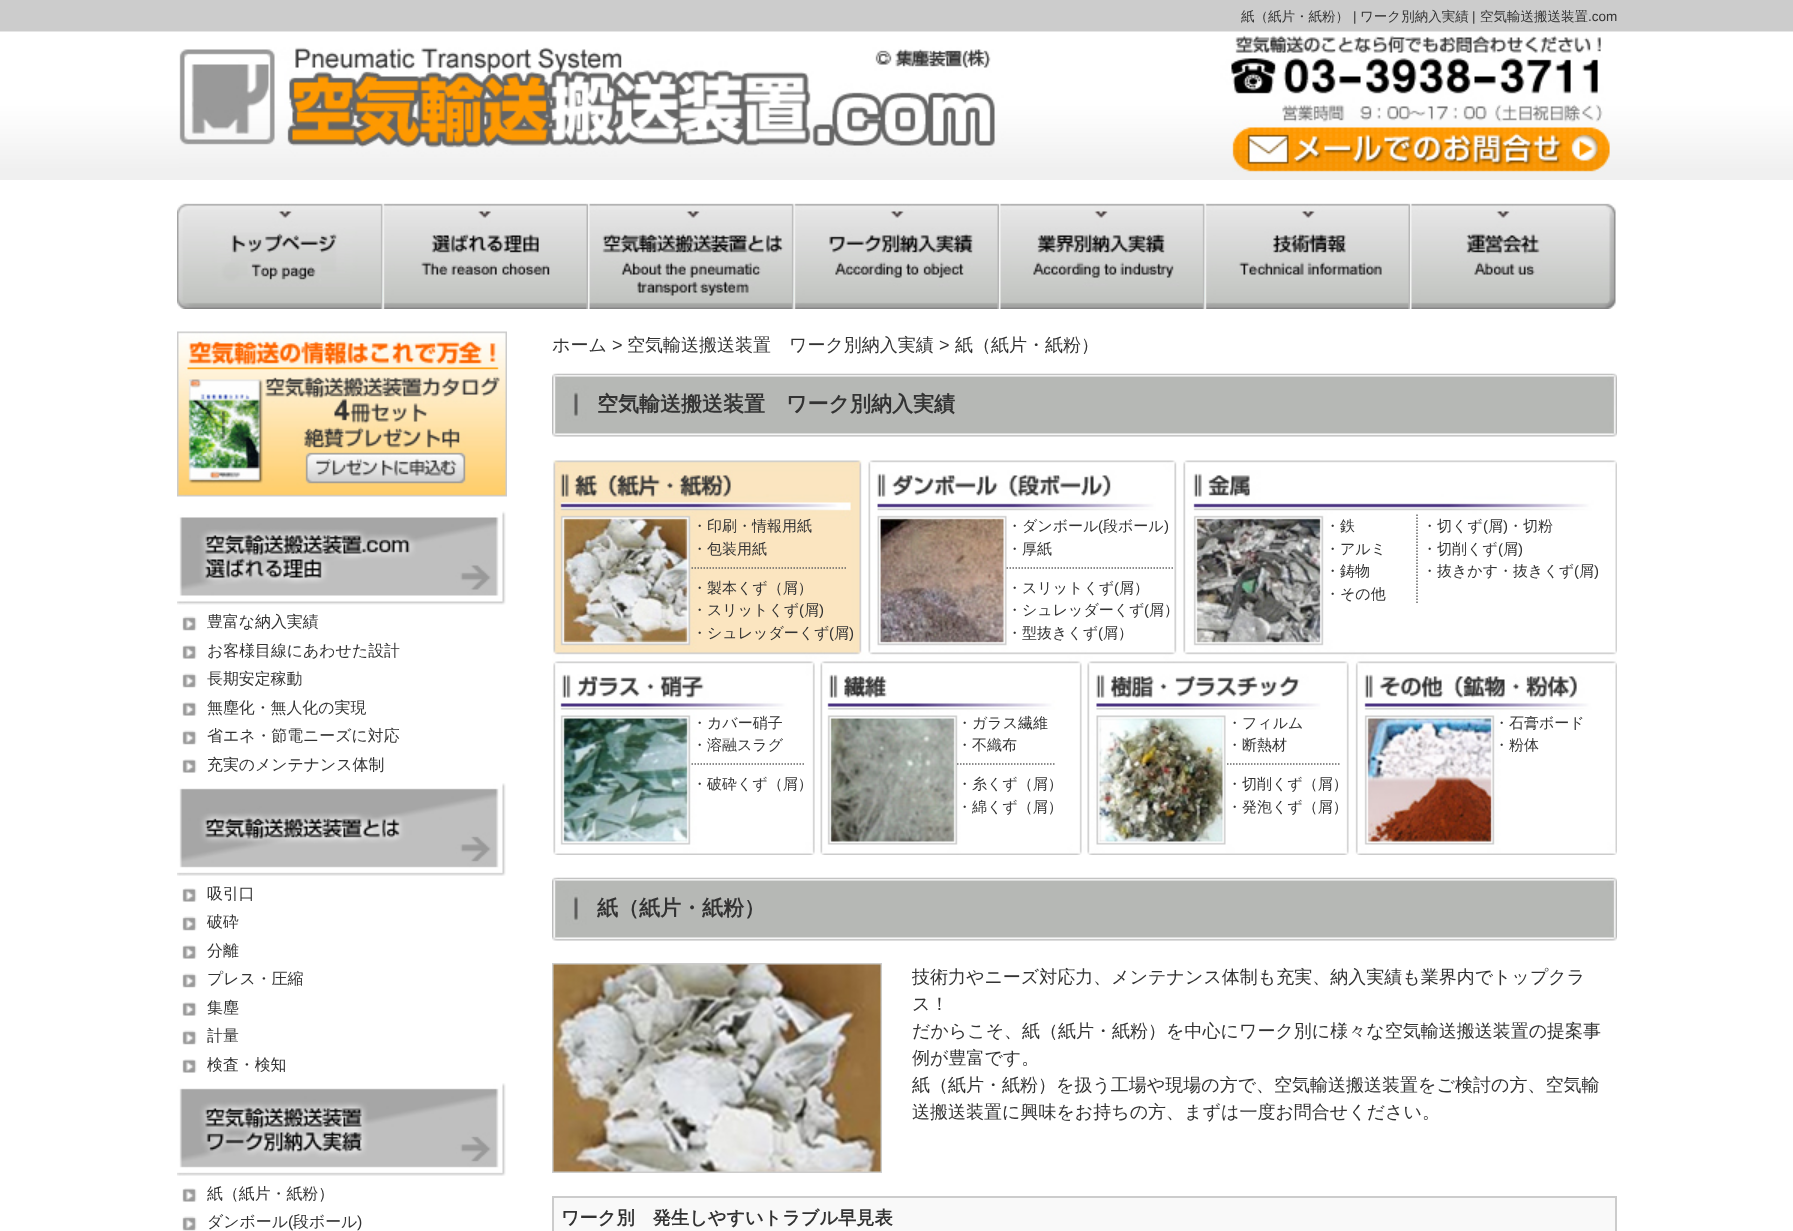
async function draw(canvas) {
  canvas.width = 1793;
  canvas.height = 1231;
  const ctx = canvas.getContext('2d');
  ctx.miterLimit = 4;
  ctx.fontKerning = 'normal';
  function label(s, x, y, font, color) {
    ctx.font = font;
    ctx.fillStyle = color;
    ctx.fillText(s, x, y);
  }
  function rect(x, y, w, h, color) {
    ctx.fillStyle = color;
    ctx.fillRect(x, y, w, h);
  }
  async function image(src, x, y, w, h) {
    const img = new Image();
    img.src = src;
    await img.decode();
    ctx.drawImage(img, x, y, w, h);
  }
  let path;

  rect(0, 0, 1793, 1231, '#fff');
  await image('assets/img1.png', 0, 0, 1793, 180);
  label('紙（紙片・紙粉）', 1241, 21, '500 13.5px WenQuanYi Zen Hei', '#333');
  label('|', 1353, 21, '13.5px Liberation Sans', '#333');
  label('ワーク別納入実績', 1360, 21, '500 13.5px WenQuanYi Zen Hei', '#333');
  label('|', 1472, 21, '13.5px Liberation Sans', '#333');
  label('空気輸送搬送装置', 1480, 21, '500 13.5px WenQuanYi Zen Hei', '#333');
  label('.com', 1588, 21, '13.5px Liberation Sans', '#333');
  await image('assets/img2.png', 179, 35, 1431, 137);
  await image('assets/img3.png', 177, 203, 1440, 106);
  await image('assets/img4.png', 177, 204, 206, 105);
  await image('assets/img5.png', 382, 204, 206, 105);
  await image('assets/img6.png', 588, 204, 206, 105);
  await image('assets/img7.png', 793, 204, 206, 105);
  await image('assets/img8.png', 999, 204, 206, 105);
  await image('assets/img9.png', 1204, 204, 206, 105);
  await image('assets/img10.png', 1410, 204, 207, 105);
  await image('assets/img11.png', 177, 331, 330, 166);
  await image('assets/img12.png', 177, 511, 329, 94);
  await image('assets/img13.png', 182, 616, 15, 15);
  label('豊富な納入実績', 207, 627, '500 15.9px WenQuanYi Zen Hei', '#333');
  await image('assets/img14.png', 182, 645, 15, 14);
  label('お客様目線にあわせた設計', 207, 656, '500 15.9px WenQuanYi Zen Hei', '#333');
  await image('assets/img13.png', 182, 673, 15, 15);
  label('長期安定稼動', 207, 684, '500 15.9px WenQuanYi Zen Hei', '#333');
  await image('assets/img14.png', 182, 702, 15, 14);
  label('無塵化・無人化の実現', 207, 713, '500 15.9px WenQuanYi Zen Hei', '#333');
  await image('assets/img13.png', 182, 730, 15, 15);
  label('省エネ・節電ニーズに対応', 207, 741, '500 15.9px WenQuanYi Zen Hei', '#333');
  await image('assets/img14.png', 182, 759, 15, 14);
  label('充実のメンテナンス体制', 207, 770, '500 15.9px WenQuanYi Zen Hei', '#333');
  await image('assets/img15.png', 177, 783, 329, 93);
  await image('assets/img14.png', 182, 888, 15, 14);
  label('吸引口', 207, 899, '500 15.9px WenQuanYi Zen Hei', '#333');
  await image('assets/img13.png', 182, 916, 15, 15);
  label('破砕', 207, 927, '500 15.9px WenQuanYi Zen Hei', '#333');
  await image('assets/img14.png', 182, 945, 15, 14);
  label('分離', 207, 956, '500 15.9px WenQuanYi Zen Hei', '#333');
  await image('assets/img13.png', 182, 973, 15, 15);
  label('プレス・圧縮', 207, 984, '500 15.9px WenQuanYi Zen Hei', '#333');
  await image('assets/img14.png', 182, 1002, 15, 14);
  label('集塵', 207, 1013, '500 15.9px WenQuanYi Zen Hei', '#333');
  await image('assets/img13.png', 182, 1030, 15, 15);
  label('計量', 207, 1041, '500 15.9px WenQuanYi Zen Hei', '#333');
  await image('assets/img14.png', 182, 1059, 15, 14);
  label('検査・検知', 207, 1070, '500 15.9px WenQuanYi Zen Hei', '#333');
  await image('assets/img16.png', 177, 1083, 329, 93);
  await image('assets/img14.png', 182, 1188, 15, 14);
  label('紙（紙片・紙粉）', 207, 1199, '500 15.9px WenQuanYi Zen Hei', '#333');
  await image('assets/img13.png', 182, 1216, 15, 15);
  label('ダンボール', 207, 1227, '500 15.9px WenQuanYi Zen Hei', '#333');
  label('(', 288, 1227, '15.9px Liberation Sans', '#333');
  label('段ボール', 293, 1227, '500 15.9px WenQuanYi Zen Hei', '#333');
  label(')', 357, 1227, '15.9px Liberation Sans', '#333');
  label('ホーム', 552, 351, '500 18px WenQuanYi Zen Hei', '#333');
  label('>', 612, 351, '18px Liberation Sans', '#333');
  label('空気輸送搬送装置　ワーク別納入実績', 627, 351, '500 18px WenQuanYi Zen Hei', '#333');
  label('>', 939, 351, '18px Liberation Sans', '#333');
  label('紙（紙片・紙粉）', 955, 351, '500 18px WenQuanYi Zen Hei', '#333');
  await image('assets/img17.png', 552, 373, 1065, 64);
  label('空気輸送搬送装置　ワーク別納入実績', 597, 411, 'bold 21px WenQuanYi Zen Hei', '#333');
  await image('assets/img18.png', 552, 460, 1065, 395);
  path = new Path2D('M691.5 568H847.5');
  ctx.strokeStyle = '#666';
  ctx.lineWidth = 1.5;
  ctx.setLineDash([1.5, 1.5]);
  ctx.stroke(path);
  label('・印刷・情報用紙', 692, 531, '500 15px WenQuanYi Zen Hei', '#333');
  label('・包装用紙', 692, 554, '500 15px WenQuanYi Zen Hei', '#333');
  label('・製本くず（屑）', 692, 593, '500 15px WenQuanYi Zen Hei', '#333');
  label('・スリットくず', 692, 615, '500 15px WenQuanYi Zen Hei', '#333');
  label('(', 799, 615, '15px Liberation Sans', '#333');
  label('屑', 804, 615, '500 15px WenQuanYi Zen Hei', '#333');
  label(')', 819, 615, '15px Liberation Sans', '#333');
  label('・シュレッダーくず', 692, 638, '500 15px WenQuanYi Zen Hei', '#333');
  label('(', 829, 638, '15px Liberation Sans', '#333');
  label('屑', 834, 638, '500 15px WenQuanYi Zen Hei', '#333');
  label(')', 849, 638, '15px Liberation Sans', '#333');
  path = new Path2D('M1006.5 568H1173');
  ctx.stroke(path);
  label('・ダンボール', 1007, 531, '500 15px WenQuanYi Zen Hei', '#333');
  label('(', 1098, 531, '15px Liberation Sans', '#333');
  label('段ボール', 1103, 531, '500 15px WenQuanYi Zen Hei', '#333');
  label(')', 1164, 531, '15px Liberation Sans', '#333');
  label('・厚紙', 1007, 554, '500 15px WenQuanYi Zen Hei', '#333');
  label('・スリットくず', 1007, 593, '500 15px WenQuanYi Zen Hei', '#333');
  label('(', 1114, 593, '15px Liberation Sans', '#333');
  label('屑）', 1119, 593, '500 15px WenQuanYi Zen Hei', '#333');
  label('・シュレッダーくず', 1007, 615, '500 15px WenQuanYi Zen Hei', '#333');
  label('(', 1144, 615, '15px Liberation Sans', '#333');
  label('屑）', 1149, 615, '500 15px WenQuanYi Zen Hei', '#333');
  label('・型抜きくず', 1007, 638, '500 15px WenQuanYi Zen Hei', '#333');
  label('(', 1098, 638, '15px Liberation Sans', '#333');
  label('屑）', 1103, 638, '500 15px WenQuanYi Zen Hei', '#333');
  path = new Path2D('M1417 514.5V604.5');
  ctx.stroke(path);
  label('・鉄', 1325, 531, '500 15px WenQuanYi Zen Hei', '#333');
  label('・アルミ', 1325, 554, '500 15px WenQuanYi Zen Hei', '#333');
  label('・鋳物', 1325, 576, '500 15px WenQuanYi Zen Hei', '#333');
  label('・その他', 1325, 599, '500 15px WenQuanYi Zen Hei', '#333');
  label('・切くず', 1422, 531, '500 15px WenQuanYi Zen Hei', '#333');
  label('(', 1483, 531, '15px Liberation Sans', '#333');
  label('屑', 1488, 531, '500 15px WenQuanYi Zen Hei', '#333');
  label(')', 1503, 531, '15px Liberation Sans', '#333');
  label('・切粉', 1508, 531, '500 15px WenQuanYi Zen Hei', '#333');
  label('・切削くず', 1422, 554, '500 15px WenQuanYi Zen Hei', '#333');
  label('(', 1498, 554, '15px Liberation Sans', '#333');
  label('屑', 1503, 554, '500 15px WenQuanYi Zen Hei', '#333');
  label(')', 1518, 554, '15px Liberation Sans', '#333');
  label('・抜きかす・抜きくず', 1422, 576, '500 15px WenQuanYi Zen Hei', '#333');
  label('(', 1574, 576, '15px Liberation Sans', '#333');
  label('屑', 1579, 576, '500 15px WenQuanYi Zen Hei', '#333');
  label(')', 1594, 576, '15px Liberation Sans', '#333');
  path = new Path2D('M691.5 764H805.5');
  ctx.stroke(path);
  label('・カバー硝子', 692, 728, '500 15px WenQuanYi Zen Hei', '#333');
  label('・溶融スラグ', 692, 750, '500 15px WenQuanYi Zen Hei', '#333');
  label('・破砕くず（屑）', 692, 789, '500 15px WenQuanYi Zen Hei', '#333');
  path = new Path2D('M957 764H1056');
  ctx.stroke(path);
  label('・ガラス繊維', 957, 728, '500 15px WenQuanYi Zen Hei', '#333');
  label('・不織布', 957, 750, '500 15px WenQuanYi Zen Hei', '#333');
  label('・糸くず（屑）', 957, 789, '500 15px WenQuanYi Zen Hei', '#333');
  label('・綿くず（屑）', 957, 812, '500 15px WenQuanYi Zen Hei', '#333');
  path = new Path2D('M1227 764H1341');
  ctx.stroke(path);
  label('・フィルム', 1227, 728, '500 15px WenQuanYi Zen Hei', '#333');
  label('・断熱材', 1227, 750, '500 15px WenQuanYi Zen Hei', '#333');
  label('・切削くず（屑）', 1227, 789, '500 15px WenQuanYi Zen Hei', '#333');
  label('・発泡くず（屑）', 1227, 812, '500 15px WenQuanYi Zen Hei', '#333');
  label('・石膏ボード', 1494, 728, '500 15px WenQuanYi Zen Hei', '#333');
  label('・粉体', 1494, 750, '500 15px WenQuanYi Zen Hei', '#333');
  await image('assets/img17.png', 552, 877, 1065, 64);
  label('紙（紙片・紙粉）', 597, 915, 'bold 21px WenQuanYi Zen Hei', '#333');
  await image('assets/img19.png', 552, 963, 330, 210);
  label('技術力やニーズ対応力、メンテナンス体制も充実、納入実績も業界内でトップクラ', 912, 983, '500 18px WenQuanYi Zen Hei', '#333');
  label('ス！', 912, 1010, '500 18px WenQuanYi Zen Hei', '#333');
  label('だからこそ、紙（紙片・紙粉）を中心にワーク別に様々な空気輸送搬送装置の提案事', 912, 1037, '500 18px WenQuanYi Zen Hei', '#333');
  label('例が豊富です。', 912, 1064, '500 18px WenQuanYi Zen Hei', '#333');
  label('紙（紙片・紙粉）を扱う工場や現場の方で、空気輸送搬送装置をご検討の方、空気輸', 912, 1091, '500 18px WenQuanYi Zen Hei', '#333');
  label('送搬送装置に興味をお持ちの方、まずは一度お問合せください。', 912, 1118, '500 18px WenQuanYi Zen Hei', '#333');
  ctx.fillStyle = '#f9f9f9';
  ctx.beginPath();
  ctx.rect(553, 1197, 1063, 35);
  ctx.fill();
  ctx.strokeStyle = '#ccc';
  ctx.lineWidth = 2;
  ctx.setLineDash([]);
  ctx.stroke();
  label('ワーク別　発生しやすいトラブル早見表', 561, 1224, 'bold 18.2px WenQuanYi Zen Hei', '#333');
}

draw(document.querySelector('canvas'));
